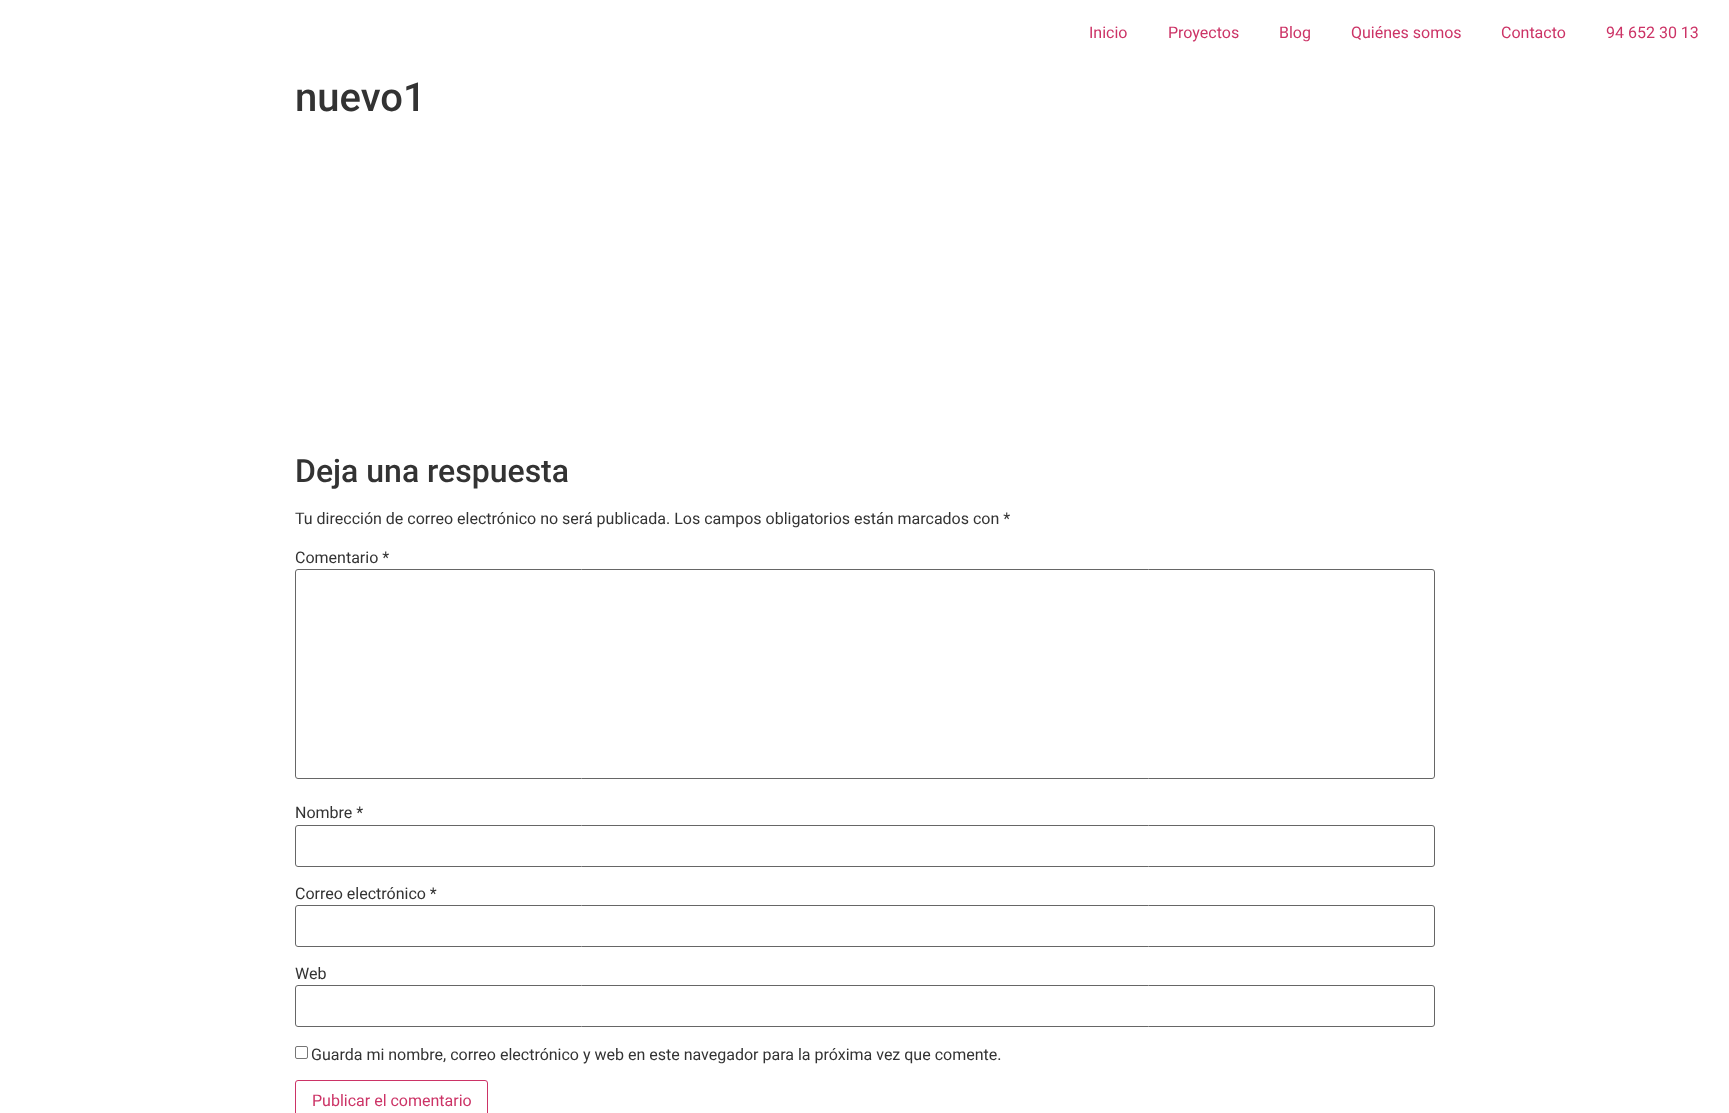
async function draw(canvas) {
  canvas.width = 1729;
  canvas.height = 1113;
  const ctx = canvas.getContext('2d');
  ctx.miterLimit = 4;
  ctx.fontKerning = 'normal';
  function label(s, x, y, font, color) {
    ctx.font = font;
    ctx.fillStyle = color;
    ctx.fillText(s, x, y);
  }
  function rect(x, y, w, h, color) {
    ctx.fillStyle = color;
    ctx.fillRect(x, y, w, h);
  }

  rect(0, 0, 1729, 1113, '#fff');
  label('Inicio', 1089, 38, '16px Roboto', '#c36');
  label('Proyectos', 1168, 38, '16px Roboto', '#c36');
  label('Blog', 1279, 38, '16px Roboto', '#c36');
  label('Quiénes somos', 1351, 38, '16px Roboto', '#c36');
  label('Contacto', 1501, 38, '16px Roboto', '#c36');
  label('94 652 30 13', 1606, 38, '16px Roboto', '#c36');
  label('nuevo1', 295, 111, '500 40px Roboto', '#333');
  label('Deja una respuesta', 295, 482, '500 32px Roboto', '#333');
  label('Tu dirección de correo electrónico no será publicada. Los campos obligatorios están marcados con *', 295, 524, '16px Roboto', '#333');
  label('Comentario *', 295, 563, '16px Roboto', '#333');
  ctx.beginPath();
  ctx.roundRect(295.5, 569.5, 1139, 209, 2.5);
  ctx.strokeStyle = '#666';
  ctx.stroke();
  label('Nombre *', 295, 818, '16px Roboto', '#333');
  ctx.beginPath();
  ctx.roundRect(295.5, 825.5, 1139, 41, 2.5);
  ctx.stroke();
  label('Correo electrónico *', 295, 899, '16px Roboto', '#333');
  ctx.beginPath();
  ctx.roundRect(295.5, 905.5, 1139, 41, 2.5);
  ctx.stroke();
  label('Web', 295, 979, '16px Roboto', '#333');
  ctx.beginPath();
  ctx.roundRect(295.5, 985.5, 1139, 41, 2.5);
  ctx.stroke();
  ctx.beginPath();
  ctx.roundRect(295.5, 1046.5, 12, 12, 1.5);
  ctx.strokeStyle = '#767676';
  ctx.stroke();
  label('Guarda mi nombre, correo electrónico y web en este navegador para la próxima vez que comente.', 311, 1060, '16px Roboto', '#333');
  ctx.beginPath();
  ctx.roundRect(295.5, 1080.5, 192, 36, 2.5);
  ctx.strokeStyle = '#c36';
  ctx.stroke();
  label('Publicar el comentario', 312, 1106, '16px Roboto', '#c36');
}

draw(document.querySelector('canvas'));
